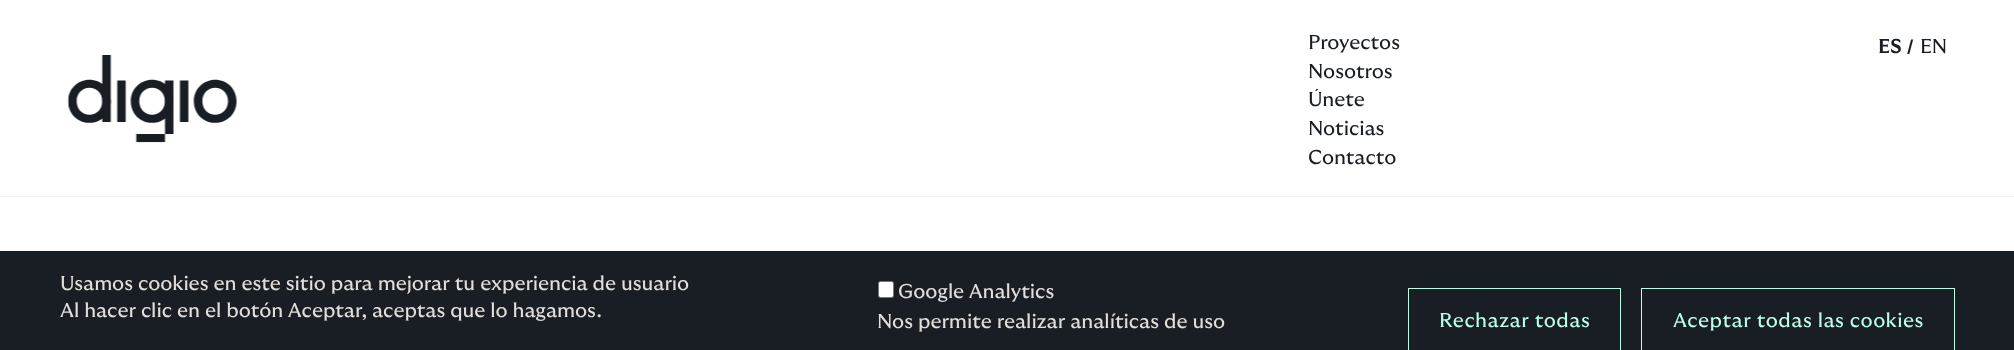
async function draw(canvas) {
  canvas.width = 2014;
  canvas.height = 350;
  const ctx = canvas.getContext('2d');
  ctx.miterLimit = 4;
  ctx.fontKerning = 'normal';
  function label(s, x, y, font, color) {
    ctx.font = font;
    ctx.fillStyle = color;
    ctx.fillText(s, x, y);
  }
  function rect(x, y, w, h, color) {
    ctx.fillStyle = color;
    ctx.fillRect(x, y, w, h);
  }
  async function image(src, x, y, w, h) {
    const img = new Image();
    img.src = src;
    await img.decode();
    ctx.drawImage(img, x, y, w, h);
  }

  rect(0, 0, 2014, 350, '#fff');
  label('Proyectos', 1308, 49, '20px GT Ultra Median', '#191e25');
  label('Nosotros', 1308, 78, '20px GT Ultra Median', '#191e25');
  label('Únete', 1308, 106, '20px GT Ultra Median', '#191e25');
  label('Noticias', 1308, 135, '20px GT Ultra Median', '#191e25');
  label('Contacto', 1308, 164, '20px GT Ultra Median', '#191e25');
  label('ES', 1878, 53, 'bold 20px GT Ultra Median', '#191e25');
  label('/', 1906, 54, '600 20px Manrope', '#191e25');
  label('EN', 1920, 53, '20px GT Ultra Median', '#191e25');
  rect(0, 196, 2014, 1, '#f1efed');
  await image('assets/img1.png', 67, 55, 170, 88);
  rect(0, 251, 2014, 99, '#191e25');
  label('Usamos cookies en este sitio para mejorar tu experiencia de usuario', 60, 290, '20px GT Ultra Median', '#e2dfda');
  label('Al hacer clic en el botón Aceptar, aceptas que lo hagamos.', 60, 317, '20px GT Ultra Median', '#e2dfda');
  ctx.fillStyle = '#fff';
  ctx.beginPath();
  ctx.roundRect(878.5, 281.5, 15, 16, 2);
  ctx.fill();
  ctx.strokeStyle = '#767676';
  ctx.stroke();
  label('Google Analytics', 898, 298, '20px GT Ultra Median', '#e2dfda');
  label('Nos permite realizar analíticas de uso', 877, 328, '20px GT Ultra Median', '#e2dfda');
  ctx.strokeStyle = '#bbffe8';
  ctx.strokeRect(1408.5, 288.5, 212, 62);
  ctx.letterSpacing = '0.5px';
  label('Rechazar todas', 1439, 327, '20px GT Ultra Median', '#bbffe8');
  ctx.strokeRect(1641.5, 288.5, 313, 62);
  label('Aceptar todas las cookies', 1673, 327, '20px GT Ultra Median', '#bbffe8');
}

draw(document.querySelector('canvas'));
